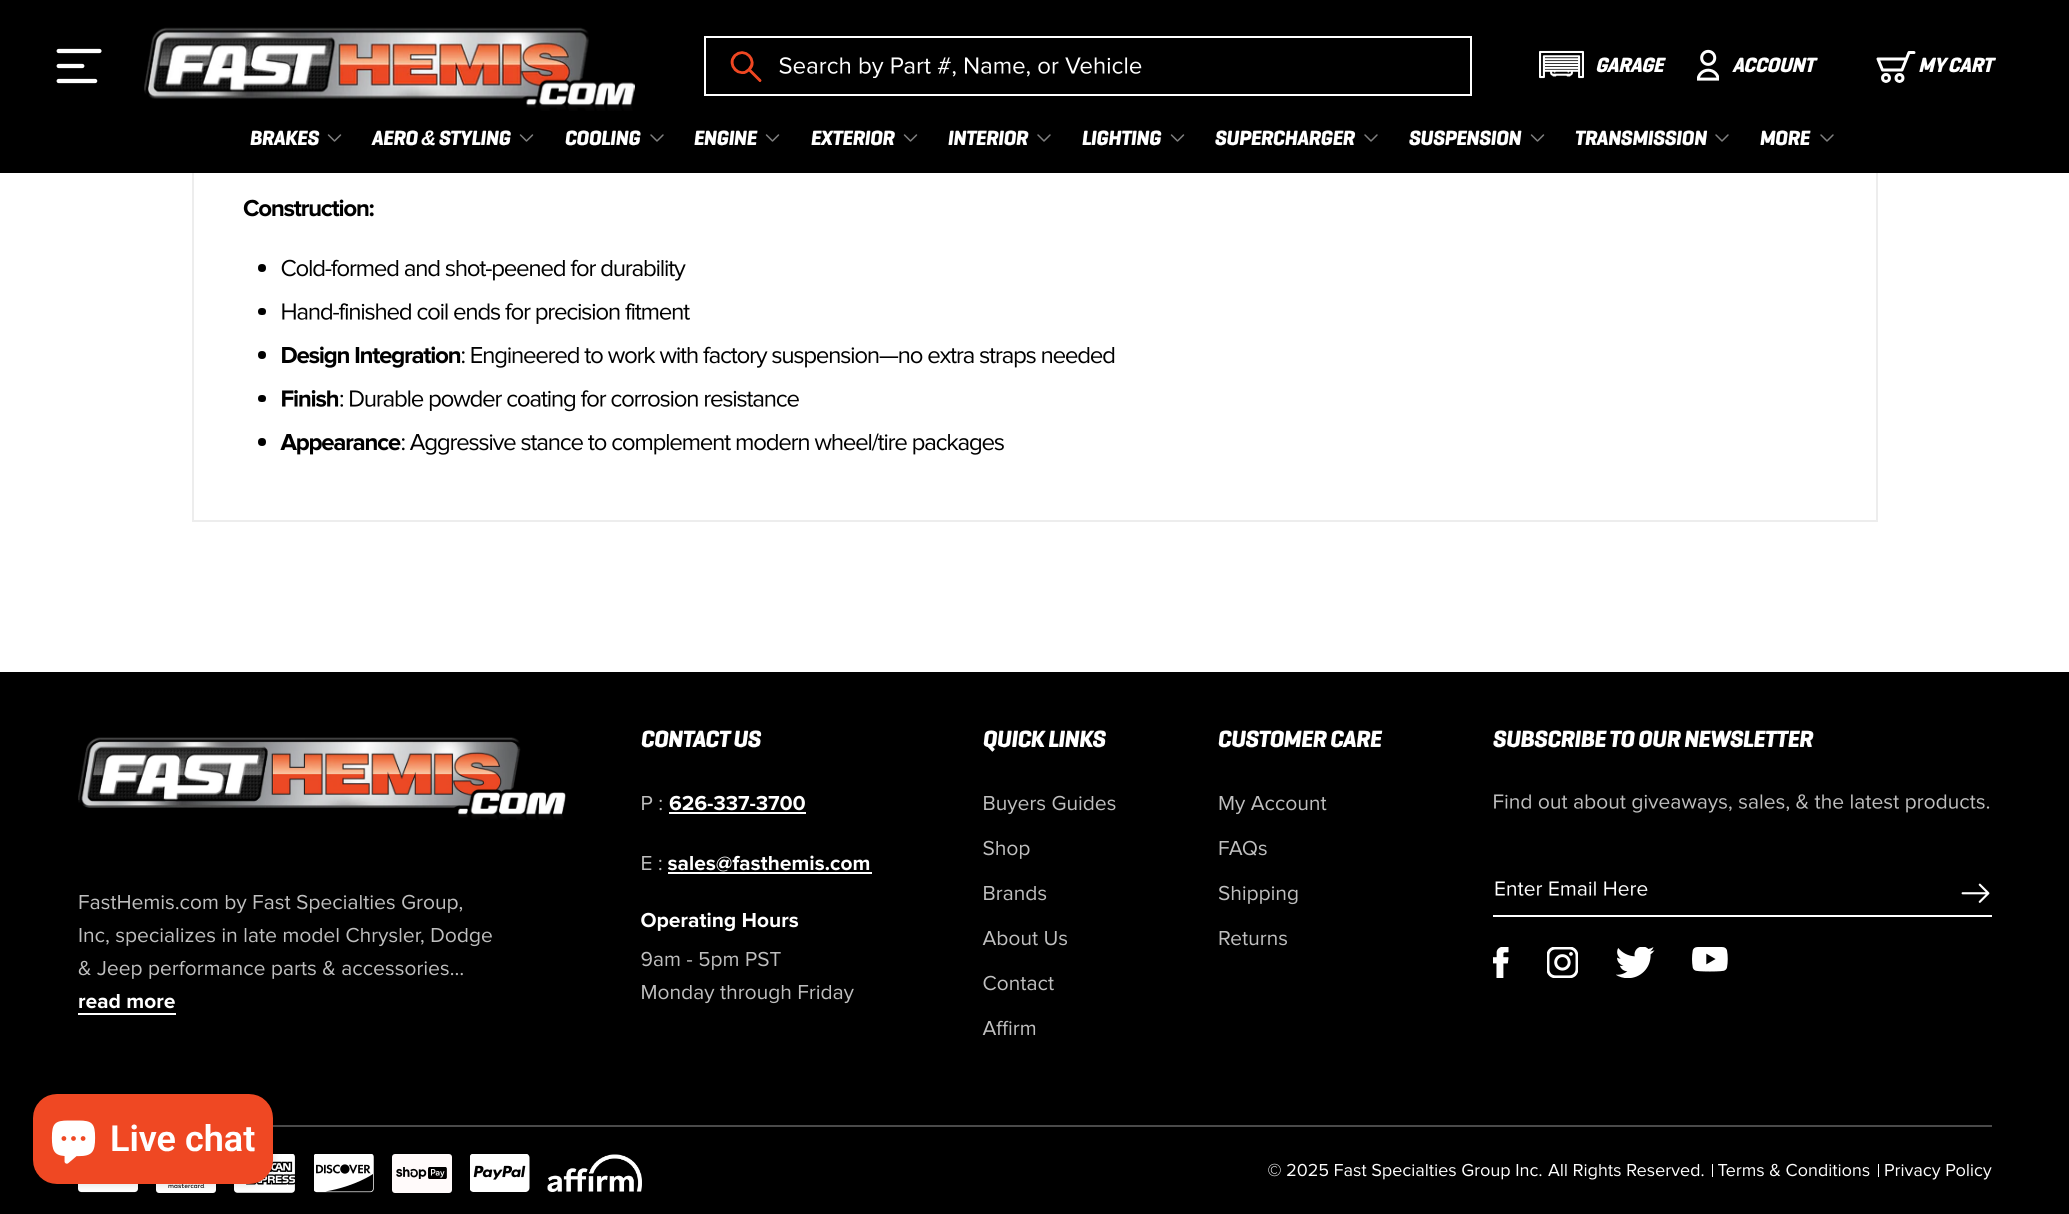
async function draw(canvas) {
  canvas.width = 2069;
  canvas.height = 1214;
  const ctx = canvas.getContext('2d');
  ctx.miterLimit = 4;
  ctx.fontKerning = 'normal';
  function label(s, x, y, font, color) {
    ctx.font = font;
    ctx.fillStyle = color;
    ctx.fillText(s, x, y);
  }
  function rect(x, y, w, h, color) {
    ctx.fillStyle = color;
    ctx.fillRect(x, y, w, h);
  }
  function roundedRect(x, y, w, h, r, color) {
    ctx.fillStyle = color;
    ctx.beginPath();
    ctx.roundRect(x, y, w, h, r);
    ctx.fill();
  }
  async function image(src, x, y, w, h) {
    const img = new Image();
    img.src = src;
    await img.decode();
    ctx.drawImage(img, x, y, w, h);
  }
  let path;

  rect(0, 0, 2069, 1214, '#fff');
  ctx.strokeStyle = '#ededed';
  ctx.lineWidth = 2;
  ctx.strokeRect(193, -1, 1684, 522);
  await image('assets/img1.png', 243, 199, 131, 18);
  ctx.fillStyle = '#000';
  ctx.beginPath();
  ctx.arc(262, 268, 4, 0, 2 * Math.PI);
  ctx.fill();
  await image('assets/img2.png', 281, 259, 405, 22);
  roundedRect(258, 308, 8, 7, 3.5, '#000');
  await image('assets/img3.png', 282, 303, 408, 21);
  ctx.beginPath();
  ctx.arc(262, 355, 4, 0, 2 * Math.PI);
  ctx.fill();
  await image('assets/img4.png', 282, 346, 179, 22);
  await image('assets/img5.png', 462, 346, 653, 22);
  roundedRect(258, 395, 8, 7, 3.5, '#000');
  await image('assets/img6.png', 282, 390, 57, 17);
  await image('assets/img7.png', 340, 390, 459, 22);
  ctx.beginPath();
  ctx.arc(262, 442, 4, 0, 2 * Math.PI);
  ctx.fill();
  await image('assets/img8.png', 280, 434, 121, 21);
  await image('assets/img9.png', 402, 433, 602, 22);
  rect(0, 0, 2069, 173, '#000');
  await image('assets/img10.png', 56, 48, 46, 36);
  await image('assets/img11.png', 144, 27, 491, 84);
  ctx.strokeStyle = '#fff';
  ctx.strokeRect(705, 37, 766, 58);
  await image('assets/img12.png', 779, 57, 363, 21);
  path = new Path2D('M735 55.5C744.5 46.5 758.5 60.5 749 69.5C740 79 726 65 735 55.5Z');
  ctx.strokeStyle = '#ef4722';
  ctx.lineWidth = 2.9;
  ctx.stroke(path);
  path = new Path2D('M750 70.5L760 80.5');
  ctx.lineCap = 'round';
  ctx.stroke(path);
  await image('assets/img13.png', 1539, 50, 45, 29);
  ctx.letterSpacing = '-0.5px';
  label('GARAGE', 1595, 72, 'italic bold 21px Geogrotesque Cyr', '#fff');
  await image('assets/img14.png', 1697, 49, 22, 32);
  label('ACCOUNT', 1732, 72, 'italic bold 21px Geogrotesque Cyr', '#fff');
  path = new Path2D('M1914 52.5H1909L1902 70H1882.5L1878 59H1906');
  ctx.strokeStyle = '#fff';
  ctx.lineWidth = 3;
  ctx.lineJoin = 'round';
  ctx.stroke(path);
  ctx.beginPath();
  ctx.arc(1886, 78, 3.5, 0, 2 * Math.PI);
  ctx.stroke();
  ctx.beginPath();
  ctx.arc(1899.5, 78, 3.5, 0, 2 * Math.PI);
  ctx.stroke();
  label('MY CART', 1918, 72, 'italic bold 21px Geogrotesque Cyr', '#fff');
  label('BRAKES', 250, 145, 'italic bold 21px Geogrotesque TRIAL', '#fff');
  await image('assets/img15.png', 327, 134, 15, 8);
  label('AERO', 372, 145, 'italic bold 21px Geogrotesque TRIAL', '#fff');
  label('&', 421, 145, 'italic bold 21px Liberation Sans', '#fff');
  label('STYLING', 439, 145, 'italic bold 21px Geogrotesque TRIAL', '#fff');
  await image('assets/img15.png', 519, 134, 15, 8);
  label('COOLING', 565, 145, 'italic bold 21px Geogrotesque TRIAL', '#fff');
  await image('assets/img16.png', 650, 134, 14, 8);
  label('ENGINE', 694, 145, 'italic bold 21px Geogrotesque TRIAL', '#fff');
  await image('assets/img15.png', 765, 134, 15, 8);
  label('EXTERIOR', 811, 145, 'italic bold 21px Geogrotesque TRIAL', '#fff');
  await image('assets/img15.png', 903, 134, 15, 8);
  label('INTERIOR', 948, 145, 'italic bold 21px Geogrotesque TRIAL', '#fff');
  await image('assets/img16.png', 1037, 134, 14, 8);
  label('LIGHTING', 1082, 145, 'italic bold 21px Geogrotesque TRIAL', '#fff');
  await image('assets/img15.png', 1170, 134, 15, 8);
  label('SUPERCHARGER', 1215, 145, 'italic bold 21px Geogrotesque TRIAL', '#fff');
  await image('assets/img16.png', 1364, 134, 14, 8);
  label('SUSPENSION', 1409, 145, 'italic bold 21px Geogrotesque TRIAL', '#fff');
  await image('assets/img15.png', 1530, 134, 15, 8);
  label('TRANSMISSION', 1575, 145, 'italic bold 21px Geogrotesque TRIAL', '#fff');
  await image('assets/img16.png', 1715, 134, 14, 8);
  label('MORE', 1760, 145, 'italic bold 21px Geogrotesque TRIAL', '#fff');
  await image('assets/img16.png', 1820, 134, 14, 8);
  rect(0, 672, 2069, 542, '#000');
  await image('assets/img17.png', 78, 737, 488, 83);
  await image('assets/img18.png', 79, 894, 384, 20);
  await image('assets/img19.png', 79, 927, 413, 20);
  await image('assets/img20.png', 78, 960, 385, 19);
  await image('assets/img21.png', 79, 994, 96, 15);
  rect(78, 1013, 98, 2, '#fff');
  ctx.letterSpacing = '-0.6px';
  label('CONTACT US', 641, 747, 'italic bold 24px Geogrotesque TRIAL', '#fff');
  await image('assets/img22.png', 642, 796, 20, 15);
  await image('assets/img23.png', 669, 795, 136, 16);
  rect(669, 812, 137, 2, '#fff');
  await image('assets/img24.png', 642, 856, 20, 15);
  await image('assets/img25.png', 668, 855, 202, 17);
  rect(668, 872, 204, 2, '#fff');
  await image('assets/img26.png', 641, 912, 158, 20);
  await image('assets/img27.png', 641, 951, 140, 19);
  await image('assets/img28.png', 642, 985, 212, 19);
  label('QUICK LINKS', 983, 747, 'italic bold 24px Geogrotesque TRIAL', '#fff');
  await image('assets/img29.png', 984, 795, 132, 20);
  await image('assets/img30.png', 983, 840, 47, 19);
  await image('assets/img31.png', 984, 886, 63, 15);
  await image('assets/img32.png', 982, 931, 85, 15);
  await image('assets/img33.png', 983, 975, 71, 16);
  await image('assets/img34.png', 982, 1020, 54, 15);
  label('CUSTOMER CARE', 1218, 747, 'italic bold 24px Geogrotesque TRIAL', '#fff');
  await image('assets/img35.png', 1219, 796, 108, 19);
  await image('assets/img36.png', 1219, 840, 48, 16);
  await image('assets/img37.png', 1219, 885, 79, 20);
  await image('assets/img38.png', 1219, 931, 68, 15);
  label('SUBSCRIBE TO OUR NEWSLETTER', 1493, 747, 'italic bold 24px Geogrotesque TRIAL', '#fff');
  await image('assets/img39.png', 1494, 794, 496, 19);
  await image('assets/img40.png', 1495, 881, 153, 15);
  await image('assets/img41.png', 1961, 883, 29, 20);
  rect(1493, 915, 499, 2, '#fff');
  await image('assets/img42.png', 1493, 947, 16, 31);
  await image('assets/img43.png', 1547, 947, 31, 31);
  await image('assets/img44.png', 1616, 947, 39, 31);
  await image('assets/img45.png', 1692, 947, 36, 25);
  rect(273, 1125, 1719, 2, '#4a4a4a');
  await image('assets/img46.png', 78, 1184, 60, 9);
  await image('assets/img47.png', 156, 1184, 60, 9);
  await image('assets/img48.png', 234, 1154, 61, 39);
  await image('assets/img49.png', 314, 1154, 60, 39);
  await image('assets/img50.png', 392, 1154, 60, 39);
  await image('assets/img51.png', 470, 1154, 60, 38);
  await image('assets/img52.png', 547, 1154, 95, 38);
  await image('assets/img53.png', 1268, 1163, 274, 17);
  await image('assets/img54.png', 1548, 1164, 156, 16);
  rect(1712, 1164, 1, 13, '#fff');
  await image('assets/img55.png', 1718, 1163, 152, 14);
  rect(1878, 1164, 1, 13, '#fff');
  await image('assets/img56.png', 1885, 1164, 107, 16);
  ctx.fillStyle = '#00000026';
  ctx.filter = 'blur(4px)';
  ctx.beginPath();
  ctx.roundRect(33, 1094, 240, 90, 24);
  ctx.fill();
  ctx.filter = 'none';
  roundedRect(33, 1094, 240, 90, 24, '#ef4823');
  await image('assets/img57.png', 51, 1120, 45, 44);
  ctx.letterSpacing = '0px';
  label('Live chat', 110, 1151, '600 36px Roboto', '#fff');
}

draw(document.querySelector('canvas'));
